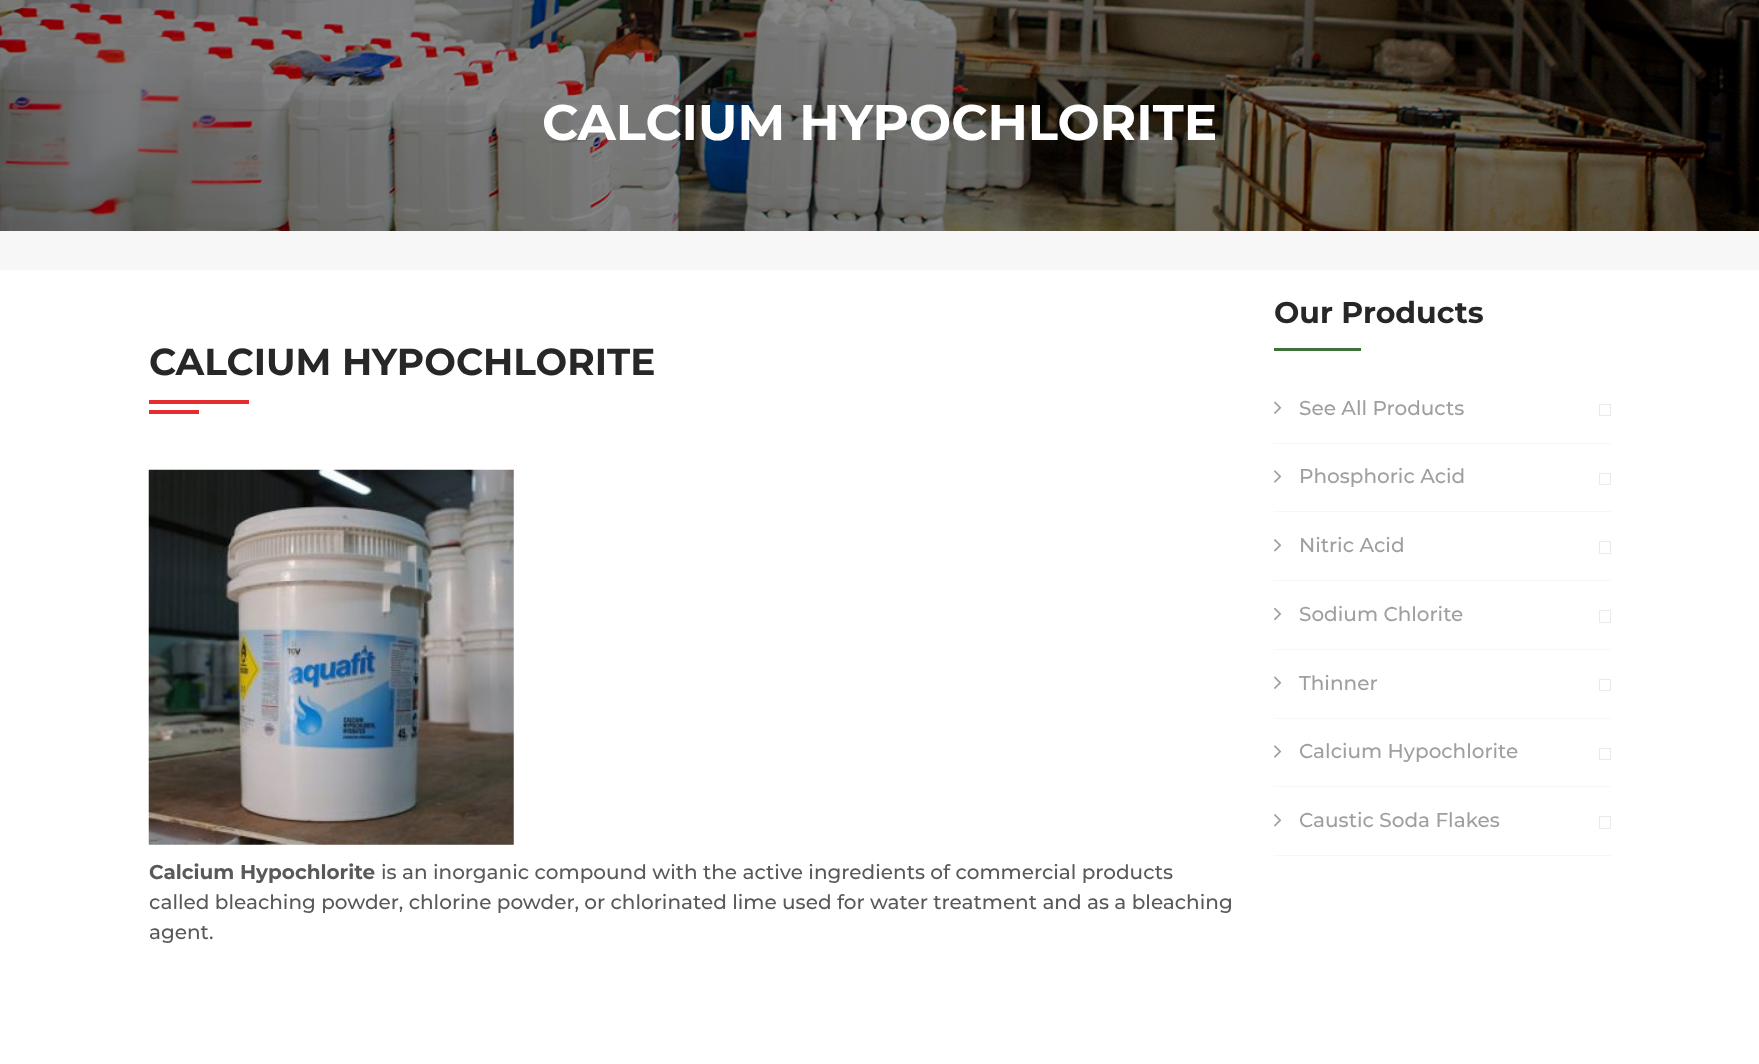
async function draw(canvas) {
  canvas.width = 1759;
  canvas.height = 1064;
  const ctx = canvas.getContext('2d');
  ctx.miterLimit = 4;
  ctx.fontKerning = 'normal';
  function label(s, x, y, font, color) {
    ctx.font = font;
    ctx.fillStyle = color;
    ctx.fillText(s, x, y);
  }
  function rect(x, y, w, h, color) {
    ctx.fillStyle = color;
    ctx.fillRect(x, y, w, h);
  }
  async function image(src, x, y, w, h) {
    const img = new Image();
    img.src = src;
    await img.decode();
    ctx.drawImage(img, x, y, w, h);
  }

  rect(0, 0, 1759, 1064, '#fff');
  await image('assets/img1.png', 0, 0, 1759, 231);
  label('CALCIUM HYPOCHLORITE', 542, 140, 'bold 50px Montserrat', '#fff');
  rect(0, 231, 1759, 39, '#f7f7f7');
  label('CALCIUM HYPOCHLORITE', 149, 375, 'bold 37.5px Montserrat', '#272727');
  rect(149, 400, 100, 4, '#e52d2f');
  rect(149, 410, 50, 4, '#e52d2f');
  await image('assets/img2.png', 148, 469, 366, 376);
  label('Calcium Hypochlorite', 149, 879, 'bold 20px Montserrat', '#595959');
  label('is an inorganic compound with the active ingredients of commercial products', 381, 879, '500 20px Montserrat', '#595959');
  label('called bleaching powder, chlorine powder, or chlorinated lime used for water treatment and as a bleaching', 149, 909, '500 20px Montserrat', '#595959');
  label('agent.', 149, 939, '500 20px Montserrat', '#595959');
  label('Our Products', 1274, 323, 'bold 30px Montserrat', '#272727');
  rect(1274, 348, 87, 3, '#3e7139');
  rect(1274, 443, 337, 1, '#f7f7f7');
  await image('assets/img3.png', 1274, 401, 8, 13);
  label('See All Products', 1299, 415, '500 20px Montserrat', '#9f9f9f');
  ctx.strokeStyle = '#eaeaea';
  ctx.strokeRect(1599.5, 404.5, 11, 11);
  rect(1274, 511, 337, 1, '#f7f7f7');
  await image('assets/img4.png', 1274, 470, 8, 13);
  label('Phosphoric Acid', 1299, 483, '500 20px Montserrat', '#9f9f9f');
  ctx.strokeRect(1599.5, 473.5, 11, 11);
  rect(1274, 580, 337, 1, '#f7f7f7');
  await image('assets/img5.png', 1274, 539, 8, 13);
  label('Nitric Acid', 1299, 552, '500 20px Montserrat', '#9f9f9f');
  ctx.strokeRect(1599.5, 541.5, 11, 12);
  rect(1274, 649, 337, 1, '#f7f7f7');
  await image('assets/img6.png', 1274, 607, 8, 14);
  label('Sodium Chlorite', 1299, 621, '500 20px Montserrat', '#9f9f9f');
  ctx.strokeRect(1599.5, 610.5, 11, 12);
  rect(1274, 718, 337, 1, '#f7f7f7');
  await image('assets/img3.png', 1274, 676, 8, 13);
  label('Thinner', 1299, 690, '500 20px Montserrat', '#9f9f9f');
  ctx.strokeRect(1599.5, 679.5, 11, 11);
  rect(1274, 786, 337, 1, '#f7f7f7');
  await image('assets/img4.png', 1274, 745, 8, 13);
  label('Calcium Hypochlorite', 1299, 758, '500 20px Montserrat', '#9f9f9f');
  ctx.strokeRect(1599.5, 748.5, 11, 11);
  rect(1274, 855, 337, 1, '#f7f7f7');
  await image('assets/img5.png', 1274, 814, 8, 13);
  label('Caustic Soda Flakes', 1299, 827, '500 20px Montserrat', '#9f9f9f');
  ctx.strokeRect(1599.5, 816.5, 11, 12);
}

draw(document.querySelector('canvas'));
